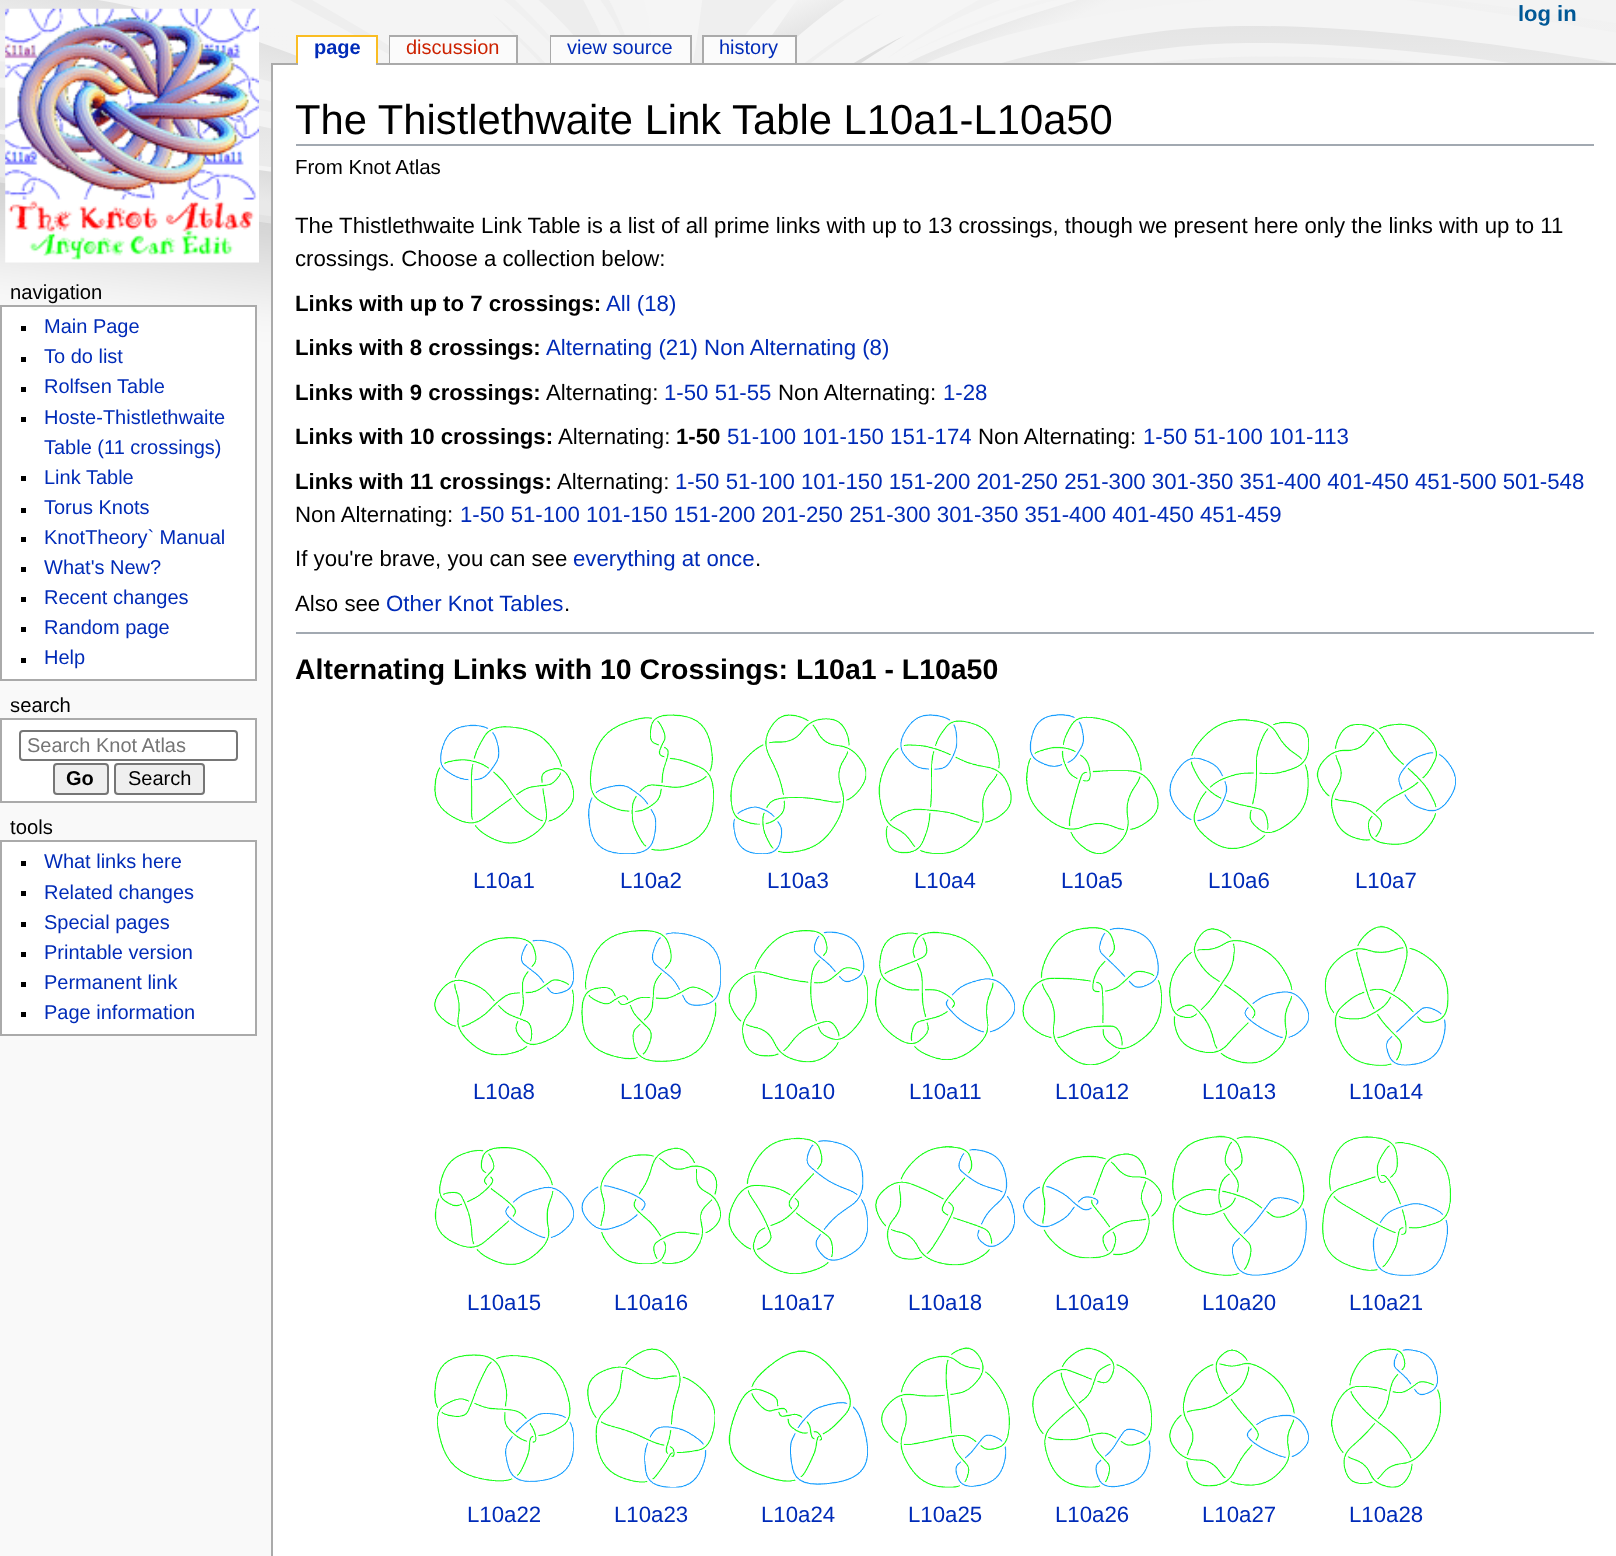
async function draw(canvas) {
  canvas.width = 1616;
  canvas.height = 1556;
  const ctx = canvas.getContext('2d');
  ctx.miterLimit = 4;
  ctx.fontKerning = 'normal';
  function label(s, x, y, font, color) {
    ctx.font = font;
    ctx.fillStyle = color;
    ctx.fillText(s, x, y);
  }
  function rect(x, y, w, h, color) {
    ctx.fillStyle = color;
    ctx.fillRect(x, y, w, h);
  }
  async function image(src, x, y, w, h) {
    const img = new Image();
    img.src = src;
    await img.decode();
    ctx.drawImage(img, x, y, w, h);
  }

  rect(0, 0, 1616, 1556, '#f9f9f9');
  await image('assets/img1.png', 0, 0, 1616, 367);
  await image('assets/img2.png', 5, 8, 254, 255);
  rect(271, 63, 1345, 2, '#aaa');
  rect(298, 37, 78, 28, '#fff');
  label('page', 314, 54, 'bold 20px Liberation Sans', '#002bb8');
  rect(296, 35, 82, 2, '#fabd23');
  rect(376, 35, 2, 28, '#fabd23');
  rect(296, 35, 2, 28, '#fabd23');
  rect(389, 35, 129, 2, '#aaa');
  rect(389, 35, 2, 28, '#aaa');
  rect(390, 37, 126, 26, '#fbfbfb');
  label('discussion', 406, 54, '20px Liberation Sans', '#c20');
  rect(516, 35, 2, 28, '#aaa');
  rect(550, 35, 141, 2, '#aaa');
  rect(550, 35, 2, 28, '#aaa');
  rect(551, 37, 139, 26, '#fbfbfb');
  label('view source', 567, 54, '20px Liberation Sans', '#002bb8');
  rect(690, 35, 2, 28, '#aaa');
  rect(704, 37, 91, 26, '#fbfbfb');
  label('history', 719, 54, '20px Liberation Sans', '#002bb8');
  rect(702, 35, 94, 2, '#aaa');
  rect(795, 35, 2, 28, '#aaa');
  rect(702, 35, 2, 28, '#aaa');
  label('log in', 1518, 21, 'bold 22px Liberation Sans', '#005896');
  label('navigation', 10, 299, '20.25px Liberation Sans', '#000');
  ctx.fillStyle = '#fff';
  ctx.beginPath();
  ctx.rect(1, 306, 255, 374);
  ctx.fill();
  ctx.strokeStyle = '#aaa';
  ctx.lineWidth = 2;
  ctx.stroke();
  rect(21, 326, 5, 5, '#000');
  label('Main Page', 44, 333, '20px Liberation Sans', '#002bb8');
  rect(21, 357, 5, 5, '#000');
  label('To do list', 44, 363, '20px Liberation Sans', '#002bb8');
  rect(21, 387, 5, 5, '#000');
  label('Rolfsen Table', 44, 393, '20px Liberation Sans', '#002bb8');
  rect(21, 417, 5, 5, '#000');
  label('Hoste-Thistlethwaite', 44, 424, '20px Liberation Sans', '#002bb8');
  label('Table (11 crossings)', 44, 454, '20px Liberation Sans', '#002bb8');
  rect(21, 476, 5, 5, '#000');
  label('Link Table', 44, 484, '20px Liberation Sans', '#002bb8');
  rect(21, 508, 5, 5, '#000');
  label('Torus Knots', 44, 514, '20px Liberation Sans', '#002bb8');
  rect(21, 537, 5, 5, '#000');
  label('KnotTheory` Manual', 44, 544, '20px Liberation Sans', '#002bb8');
  rect(21, 567, 5, 5, '#000');
  label('What\'s New?', 44, 574, '20px Liberation Sans', '#002bb8');
  rect(21, 597, 5, 5, '#000');
  label('Recent changes', 44, 604, '20px Liberation Sans', '#002bb8');
  rect(21, 627, 5, 5, '#000');
  label('Random page', 44, 634, '20px Liberation Sans', '#002bb8');
  rect(21, 658, 5, 5, '#000');
  label('Help', 44, 664, '20px Liberation Sans', '#002bb8');
  label('search', 10, 712, '20.25px Liberation Sans', '#000');
  ctx.fillStyle = '#fff';
  ctx.beginPath();
  ctx.rect(1, 719, 255, 83);
  ctx.fill();
  ctx.stroke();
  ctx.beginPath();
  ctx.roundRect(20, 731, 217, 29, 3);
  ctx.strokeStyle = '#767676';
  ctx.stroke();
  label('Search Knot Atlas', 27, 752, '20px Liberation Sans', '#757575');
  ctx.fillStyle = '#efefef';
  ctx.beginPath();
  ctx.roundRect(54, 764, 54, 30, 3);
  ctx.fill();
  ctx.stroke();
  label('Go', 66, 785, 'bold 20px Liberation Sans', '#000');
  ctx.fillStyle = '#efefef';
  ctx.beginPath();
  ctx.roundRect(115, 764, 89, 30, 3);
  ctx.fill();
  ctx.stroke();
  label('Search', 128, 785, '20px Liberation Sans', '#000');
  label('tools', 10, 834, '20.25px Liberation Sans', '#000');
  ctx.fillStyle = '#fff';
  ctx.beginPath();
  ctx.rect(1, 841, 255, 194);
  ctx.fill();
  ctx.strokeStyle = '#aaa';
  ctx.stroke();
  rect(21, 861, 5, 5, '#000');
  label('What links here', 44, 868, '20px Liberation Sans', '#002bb8');
  rect(21, 891, 5, 5, '#000');
  label('Related changes', 44, 899, '20px Liberation Sans', '#002bb8');
  rect(21, 922, 5, 5, '#000');
  label('Special pages', 44, 929, '20px Liberation Sans', '#002bb8');
  rect(21, 952, 5, 5, '#000');
  label('Printable version', 44, 959, '20px Liberation Sans', '#002bb8');
  rect(21, 982, 5, 5, '#000');
  label('Permanent link', 44, 989, '20px Liberation Sans', '#002bb8');
  rect(21, 1012, 5, 5, '#000');
  label('Page information', 44, 1019, '20px Liberation Sans', '#002bb8');
  rect(273, 65, 1343, 1491, '#fff');
  rect(271, 63, 2, 1493, '#aaa');
  rect(296, 144, 1298, 2, '#a2a9b1');
  label('The Thistlethwaite Link Table L10a1-L10a50', 295, 134, '41.75px Liberation Sans', '#000');
  label('From Knot Atlas', 295, 174, '20.5px Liberation Sans', '#000');
  label('The Thistlethwaite Link Table is a list of all prime links with up to 13 crossings, though we present here only the links with up to 11', 295, 233, '22.22px Liberation Sans', '#000');
  label('crossings. Choose a collection below:', 295, 266, '22.22px Liberation Sans', '#000');
  label('Links with up to 7 crossings:', 295, 311, 'bold 22.22px Liberation Sans', '#000');
  label('All (18)', 606, 311, '22.22px Liberation Sans', '#002bb8');
  label('Links with 8 crossings:', 295, 355, 'bold 22.22px Liberation Sans', '#000');
  label('Alternating (21) Non Alternating (8)', 546, 355, '22.22px Liberation Sans', '#002bb8');
  label('Links with 9 crossings:', 295, 400, 'bold 22.22px Liberation Sans', '#000');
  label('Alternating:', 546, 400, '22.22px Liberation Sans', '#000');
  label('1-50 51-55', 664, 400, '22.22px Liberation Sans', '#002bb8');
  label('Non Alternating:', 778, 400, '22.22px Liberation Sans', '#000');
  label('1-28', 943, 400, '22.22px Liberation Sans', '#002bb8');
  label('Links with 10 crossings:', 295, 444, 'bold 22.22px Liberation Sans', '#000');
  label('Alternating:', 558, 444, '22.22px Liberation Sans', '#000');
  label('1-50', 676, 444, 'bold 22.22px Liberation Sans', '#000');
  label('51-100 101-150 151-174', 727, 444, '22.22px Liberation Sans', '#002bb8');
  label('Non Alternating:', 978, 444, '22.22px Liberation Sans', '#000');
  label('1-50 51-100 101-113', 1143, 444, '22.22px Liberation Sans', '#002bb8');
  label('Links with 11 crossings:', 295, 489, 'bold 22.22px Liberation Sans', '#000');
  label('Alternating:', 557, 489, '22.22px Liberation Sans', '#000');
  label('1-50 51-100 101-150 151-200 201-250 251-300 301-350 351-400 401-450 451-500 501-548', 675, 489, '22.22px Liberation Sans', '#002bb8');
  label('Non Alternating:', 295, 522, '22.22px Liberation Sans', '#000');
  label('1-50 51-100 101-150 151-200 201-250 251-300 301-350 351-400 401-450 451-459', 460, 522, '22.22px Liberation Sans', '#002bb8');
  label('If you\'re brave, you can see', 295, 566, '22.22px Liberation Sans', '#000');
  label('everything at once', 573, 566, '22.22px Liberation Sans', '#002bb8');
  label('.', 755, 566, '22.22px Liberation Sans', '#000');
  label('Also see', 295, 611, '22.22px Liberation Sans', '#000');
  label('Other Knot Tables', 386, 611, '22.22px Liberation Sans', '#002bb8');
  label('.', 564, 611, '22.22px Liberation Sans', '#000');
  rect(296, 632, 1298, 2, '#a2a9b1');
  label('Alternating Links with 10 Crossings: L10a1 - L10a50', 295, 679, 'bold 28.45px Liberation Sans', '#000');
  await image('assets/img3.png', 434, 724, 140, 120);
  label('L10a1', 473, 888, '22.22px Liberation Sans', '#002bb8');
  await image('assets/img4.png', 588, 714, 126, 140);
  label('L10a2', 620, 888, '22.22px Liberation Sans', '#002bb8');
  await image('assets/img5.png', 730, 714, 137, 140);
  label('L10a3', 767, 888, '22.22px Liberation Sans', '#002bb8');
  await image('assets/img6.png', 878, 714, 134, 140);
  label('L10a4', 914, 888, '22.22px Liberation Sans', '#002bb8');
  await image('assets/img7.png', 1026, 714, 133, 140);
  label('L10a5', 1061, 888, '22.22px Liberation Sans', '#002bb8');
  await image('assets/img8.png', 1169, 719, 140, 130);
  label('L10a6', 1208, 888, '22.22px Liberation Sans', '#002bb8');
  await image('assets/img9.png', 1316, 723, 140, 122);
  label('L10a7', 1355, 888, '22.22px Liberation Sans', '#002bb8');
  await image('assets/img10.png', 434, 937, 140, 119);
  label('L10a8', 473, 1099, '22.22px Liberation Sans', '#002bb8');
  await image('assets/img11.png', 581, 930, 140, 132);
  label('L10a9', 620, 1099, '22.22px Liberation Sans', '#002bb8');
  await image('assets/img12.png', 728, 930, 140, 133);
  label('L10a10', 761, 1099, '22.22px Liberation Sans', '#002bb8');
  await image('assets/img13.png', 875, 931, 140, 129);
  label('L10a11', 909, 1099, '22.22px Liberation Sans', '#002bb8');
  await image('assets/img14.png', 1022, 927, 140, 138);
  label('L10a12', 1055, 1099, '22.22px Liberation Sans', '#002bb8');
  await image('assets/img15.png', 1169, 928, 140, 136);
  label('L10a13', 1202, 1099, '22.22px Liberation Sans', '#002bb8');
  await image('assets/img16.png', 1324, 925, 125, 141);
  label('L10a14', 1349, 1099, '22.22px Liberation Sans', '#002bb8');
  await image('assets/img17.png', 434, 1147, 140, 118);
  label('L10a15', 467, 1310, '22.22px Liberation Sans', '#002bb8');
  await image('assets/img18.png', 581, 1147, 140, 117);
  label('L10a16', 614, 1310, '22.22px Liberation Sans', '#002bb8');
  await image('assets/img19.png', 728, 1137, 140, 137);
  label('L10a17', 761, 1310, '22.22px Liberation Sans', '#002bb8');
  await image('assets/img20.png', 875, 1146, 140, 120);
  label('L10a18', 908, 1310, '22.22px Liberation Sans', '#002bb8');
  await image('assets/img21.png', 1022, 1153, 140, 106);
  label('L10a19', 1055, 1310, '22.22px Liberation Sans', '#002bb8');
  await image('assets/img22.png', 1172, 1135, 135, 141);
  label('L10a20', 1202, 1310, '22.22px Liberation Sans', '#002bb8');
  await image('assets/img23.png', 1322, 1136, 129, 140);
  label('L10a21', 1349, 1310, '22.22px Liberation Sans', '#002bb8');
  await image('assets/img24.png', 434, 1354, 140, 128);
  label('L10a22', 467, 1522, '22.22px Liberation Sans', '#002bb8');
  await image('assets/img25.png', 587, 1348, 128, 140);
  label('L10a23', 614, 1522, '22.22px Liberation Sans', '#002bb8');
  await image('assets/img26.png', 728, 1350, 140, 135);
  label('L10a24', 761, 1522, '22.22px Liberation Sans', '#002bb8');
  await image('assets/img27.png', 881, 1347, 129, 141);
  label('L10a25', 908, 1522, '22.22px Liberation Sans', '#002bb8');
  await image('assets/img28.png', 1032, 1347, 120, 141);
  label('L10a26', 1055, 1522, '22.22px Liberation Sans', '#002bb8');
  await image('assets/img29.png', 1169, 1349, 140, 138);
  label('L10a27', 1202, 1522, '22.22px Liberation Sans', '#002bb8');
  await image('assets/img30.png', 1331, 1348, 110, 140);
  label('L10a28', 1349, 1522, '22.22px Liberation Sans', '#002bb8');
}

draw(document.querySelector('canvas'));
